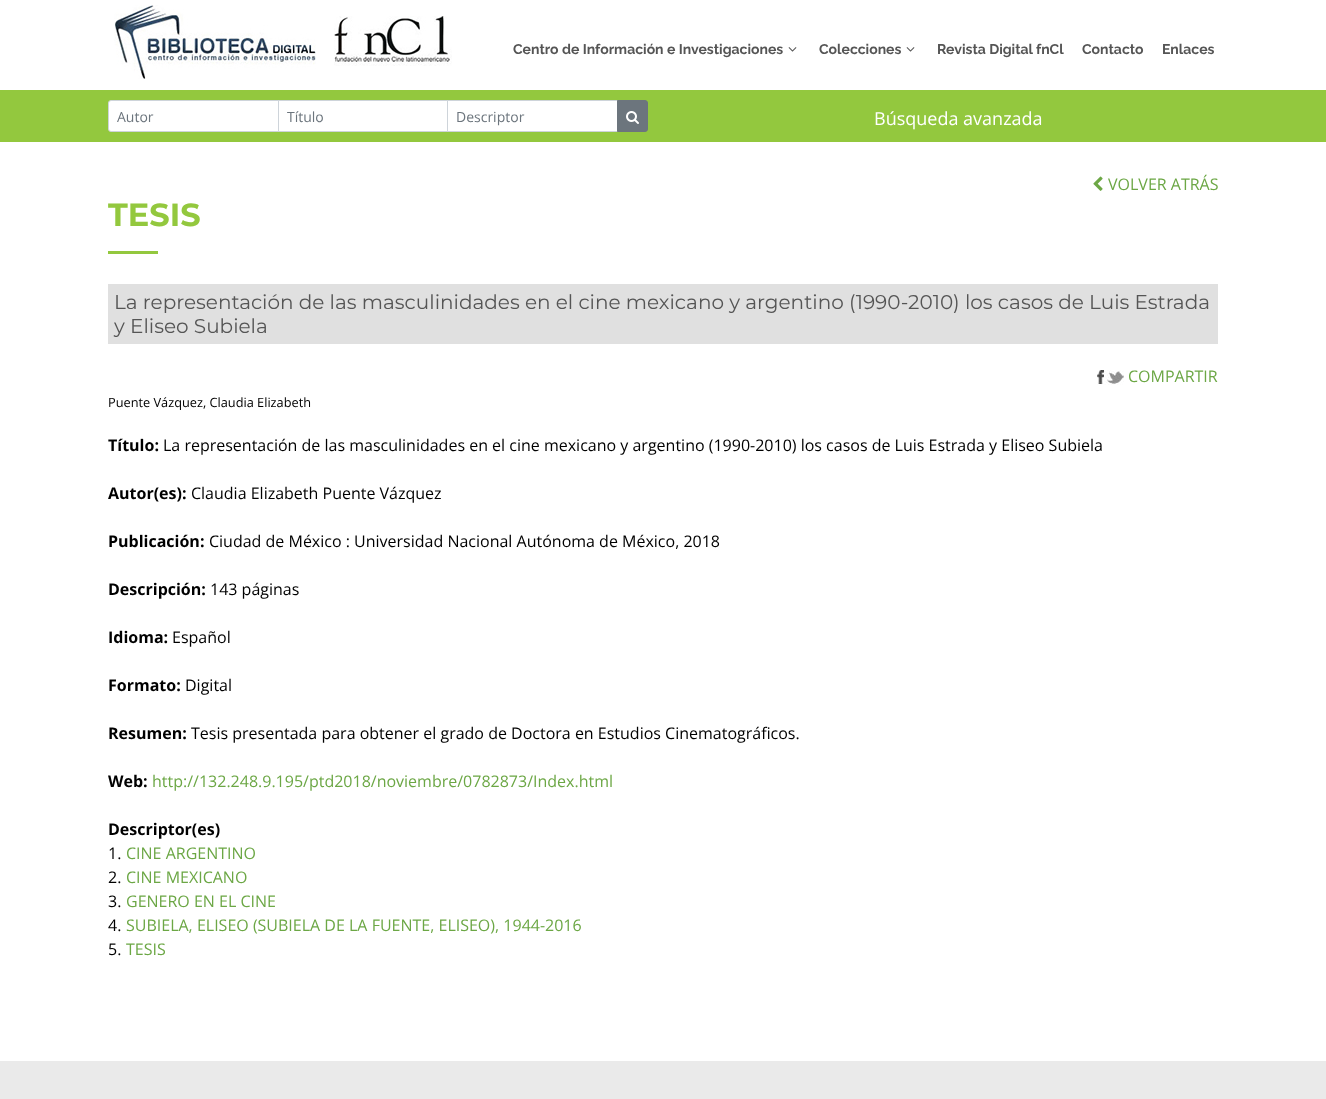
async function draw(canvas) {
  canvas.width = 1326;
  canvas.height = 1099;
  const ctx = canvas.getContext('2d');
  ctx.miterLimit = 4;
  ctx.fontKerning = 'normal';
  function label(s, x, y, font, color) {
    ctx.font = font;
    ctx.fillStyle = color;
    ctx.fillText(s, x, y);
  }
  function rect(x, y, w, h, color) {
    ctx.fillStyle = color;
    ctx.fillRect(x, y, w, h);
  }
  async function image(src, x, y, w, h) {
    const img = new Image();
    img.src = src;
    await img.decode();
    ctx.drawImage(img, x, y, w, h);
  }

  rect(0, 0, 1326, 1099, '#fff');
  await image('assets/img1.png', 114, 5, 202, 74);
  await image('assets/img2.png', 334, 16, 118, 50);
  label('Centro de Información e Investigaciones', 513, 54, 'bold 14px Raleway', '#555');
  await image('assets/img3.png', 788, 47, 9, 5);
  label('Colecciones', 819, 54, 'bold 14px Raleway', '#555');
  await image('assets/img3.png', 906, 47, 9, 5);
  label('Revista Digital fnCl', 937, 54, 'bold 14px Raleway', '#555');
  label('Contacto', 1082, 54, 'bold 14px Raleway', '#555');
  label('Enlaces', 1162, 54, 'bold 14px Raleway', '#555');
  rect(0, 90, 1326, 52, '#93c83e');
  ctx.fillStyle = '#fff';
  ctx.beginPath();
  ctx.roundRect(108.5, 100.5, 170, 31, [2.5, 0, 0, 2.5]);
  ctx.fill();
  ctx.strokeStyle = '#ced4da';
  ctx.stroke();
  label('Autor', 117, 122, '14px Open Sans', '#6c757d');
  ctx.fillStyle = '#fff';
  ctx.beginPath();
  ctx.rect(278.5, 100.5, 169, 31);
  ctx.fill();
  ctx.stroke();
  label('Título', 287, 122, '14px Open Sans', '#6c757d');
  ctx.fillStyle = '#fff';
  ctx.beginPath();
  ctx.rect(447.5, 100.5, 170, 31);
  ctx.fill();
  ctx.stroke();
  label('Descriptor', 456, 122, '14px Open Sans', '#6c757d');
  ctx.beginPath();
  ctx.roundRect(617.5, 100.5, 30, 31, [0, 2.5, 2.5, 0]);
  ctx.fill();
  ctx.strokeStyle = '#6c757d';
  ctx.stroke();
  await image('assets/img4.png', 626, 111, 13, 13);
  label('Búsqueda avanzada', 874, 125, '18px Open Sans', '#fff');
  await image('assets/img5.png', 1093, 176, 10, 15);
  label('VOLVER ATRÁS', 1108, 190, '16px Open Sans', '#6ca745');
  label('TESIS', 108, 226, 'bold 32px Montserrat', '#93c83e');
  rect(108, 251, 50, 3, '#93c83e');
  rect(108, 284, 1110, 60, '#e0e0e0');
  label('La representación de las masculinidades en el cine mexicano y argentino (1990-2010) los casos de Luis Estrada', 114, 309, '20px Montserrat', '#555');
  label('y Eliseo Subiela', 114, 333, '20px Montserrat', '#555');
  await image('assets/img6.png', 1097, 370, 27, 15);
  label('COMPARTIR', 1128, 382, '16px Open Sans', '#6ca745');
  label('Puente Vázquez, Claudia Elizabeth', 108, 407, '12.75px Open Sans', '#000');
  label('Título:', 108, 451, 'bold 16px Open Sans', '#000');
  label('La representación de las masculinidades en el cine mexicano y argentino (1990-2010) los casos de Luis Estrada y Eliseo Subiela', 163, 451, '16px Open Sans', '#000');
  label('Autor(es):', 108, 499, 'bold 16px Open Sans', '#000');
  label('Claudia Elizabeth Puente Vázquez', 191, 499, '16px Open Sans', '#000');
  label('Publicación:', 108, 547, 'bold 16px Open Sans', '#000');
  label('Ciudad de México : Universidad Nacional Autónoma de México, 2018', 209, 547, '16px Open Sans', '#000');
  label('Descripción:', 108, 595, 'bold 16px Open Sans', '#000');
  label('143 páginas', 210, 595, '16px Open Sans', '#000');
  label('Idioma:', 108, 643, 'bold 16px Open Sans', '#000');
  label('Español', 172, 643, '16px Open Sans', '#000');
  label('Formato:', 108, 691, 'bold 16px Open Sans', '#000');
  label('Digital', 185, 691, '16px Open Sans', '#000');
  label('Resumen:', 108, 739, 'bold 16px Open Sans', '#000');
  label('Tesis presentada para obtener el grado de Doctora en Estudios Cinematográficos.', 191, 739, '16px Open Sans', '#000');
  label('Web:', 108, 787, 'bold 16px Open Sans', '#000');
  label('http://132.248.9.195/ptd2018/noviembre/0782873/Index.html', 152, 787, '16px Open Sans', '#6ca745');
  label('Descriptor(es)', 108, 835, 'bold 16px Open Sans', '#000');
  label('1.', 108, 859, '16px Open Sans', '#000');
  label('CINE ARGENTINO', 126, 859, '16px Open Sans', '#6ca745');
  label('2.', 108, 883, '16px Open Sans', '#000');
  label('CINE MEXICANO', 126, 883, '16px Open Sans', '#6ca745');
  label('3.', 108, 907, '16px Open Sans', '#000');
  label('GENERO EN EL CINE', 126, 907, '16px Open Sans', '#6ca745');
  label('4.', 108, 931, '16px Open Sans', '#000');
  label('SUBIELA, ELISEO (SUBIELA DE LA FUENTE, ELISEO), 1944-2016', 126, 931, '16px Open Sans', '#6ca745');
  label('5.', 108, 955, '16px Open Sans', '#000');
  label('TESIS', 126, 955, '16px Open Sans', '#6ca745');
  rect(0, 1061, 1326, 38, '#eaeaea');
}

draw(document.querySelector('canvas'));
